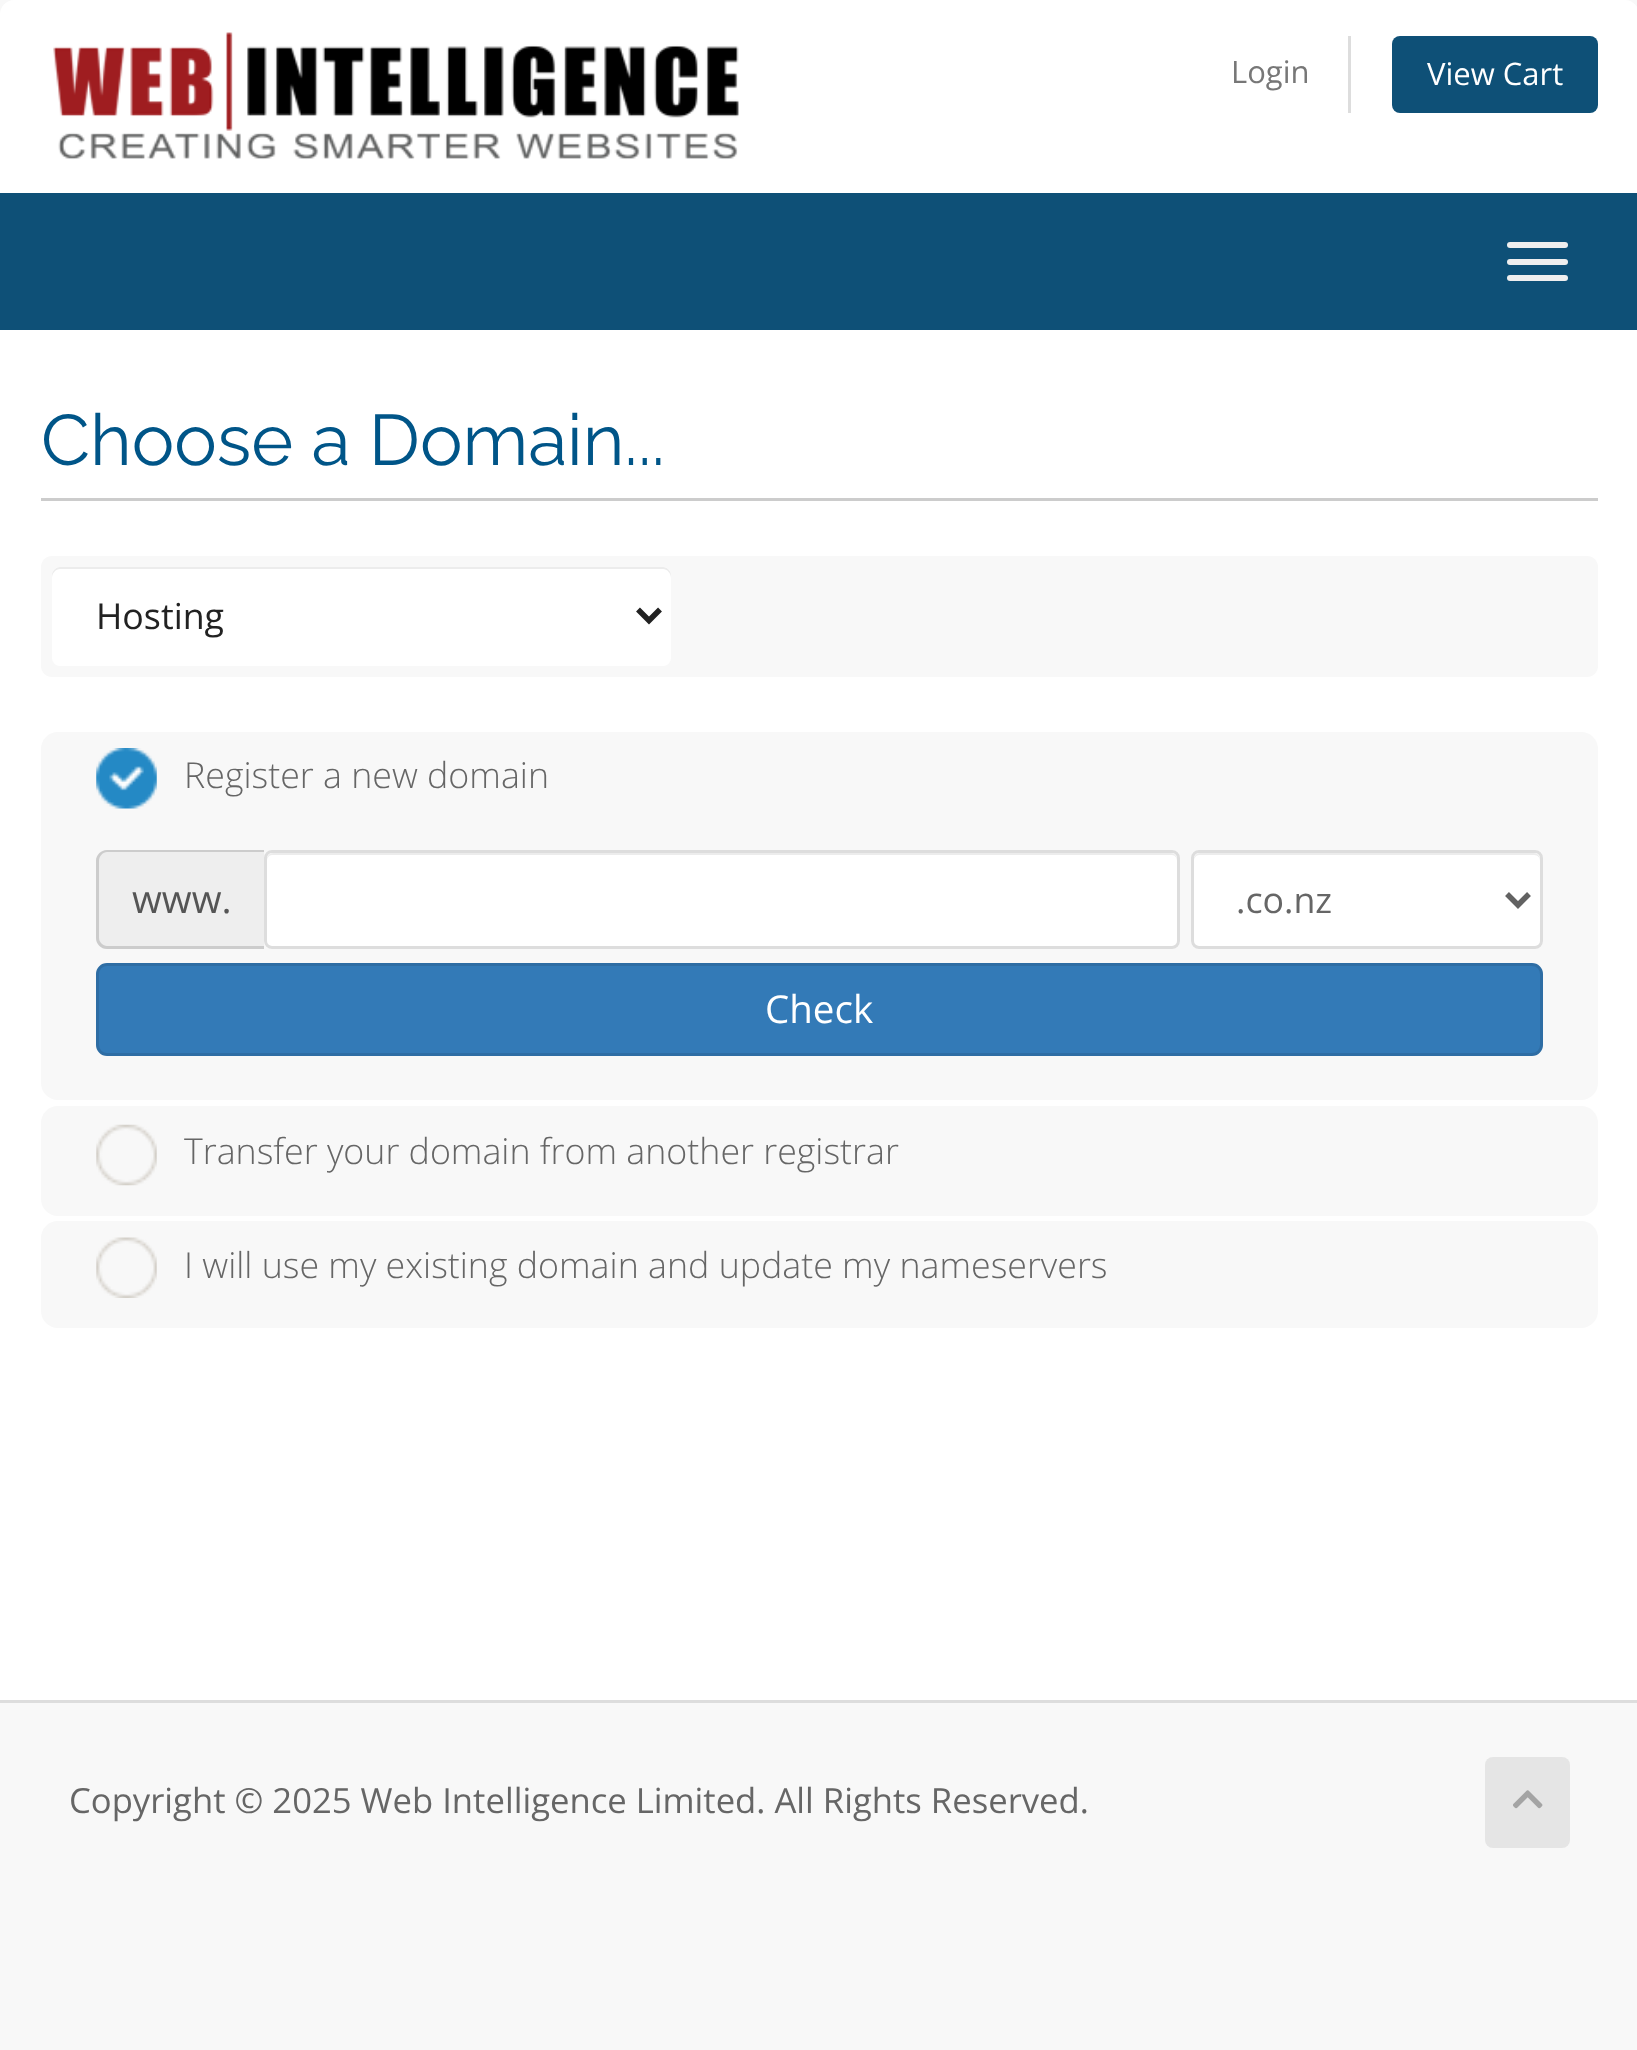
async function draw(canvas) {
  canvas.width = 1637;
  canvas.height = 2050;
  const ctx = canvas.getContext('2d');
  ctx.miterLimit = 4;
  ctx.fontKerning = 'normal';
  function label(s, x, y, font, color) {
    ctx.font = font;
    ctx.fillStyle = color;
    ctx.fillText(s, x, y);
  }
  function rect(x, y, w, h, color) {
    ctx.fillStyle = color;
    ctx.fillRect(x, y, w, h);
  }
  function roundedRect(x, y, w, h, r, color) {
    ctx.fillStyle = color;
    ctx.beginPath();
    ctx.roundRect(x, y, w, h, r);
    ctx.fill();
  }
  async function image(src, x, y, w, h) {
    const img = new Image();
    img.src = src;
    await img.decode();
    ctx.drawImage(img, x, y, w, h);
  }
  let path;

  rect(0, 0, 1637, 2050, '#f8f8f8');
  ctx.fillStyle = '#fff';
  path = new Path2D('M14 0H1625C1632.5 0 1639 6.5 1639 14V193H0V14C0 6.5 6.5 0 14 0Z');
  ctx.fill(path);
  await image('assets/img1.png', 53, 32, 686, 128);
  label('Login', 1231, 83, '31px Open Sans', '#777');
  rect(1348, 36, 3, 77, '#ddd');
  roundedRect(1392, 36, 206, 77, 8, '#0e5077');
  label('View Cart', 1427, 85, '31px Open Sans', '#fff');
  rect(0, 193, 1637, 137, '#0e5077');
  roundedRect(1507, 242, 61, 6, 3, '#eee');
  roundedRect(1507, 259, 61, 6, 3, '#eee');
  roundedRect(1507, 275, 61, 6, 3, '#eee');
  rect(0, 330, 1637, 1370, '#fff');
  rect(41, 498, 1557, 3, '#ccc');
  label('Choose a Domain...', 41, 465, '71.5px Raleway', '#058');
  roundedRect(41, 556, 1557, 121, 11, '#f8f8f8');
  roundedRect(52, 567, 619, 99, 8, '#fff');
  ctx.fillStyle = '#ececec';
  path = new Path2D('M60 569H663C667 569 671 573 671 578V575C671 571 667 567 663 567H60C56 567 52 571 52 575V578C52 573 56 569 60 569Z');
  ctx.fill(path);
  path = new Path2D('M638 609.5L649 620.5L660 609.5');
  ctx.strokeStyle = '#222';
  ctx.lineWidth = 5.5;
  ctx.stroke(path);
  label('Hosting', 96, 629, '35.75px Open Sans', '#222');
  roundedRect(41, 732, 1557, 368, 17, '#f8f8f8');
  await image('assets/img2.png', 96, 748, 61, 61);
  label('Register a new domain', 184, 788, '300 35.75px Open Sans', '#666');
  ctx.fillStyle = '#eee';
  ctx.beginPath();
  ctx.roundRect(96, 850, 168, 99, [11, 0, 0, 11]);
  ctx.fill();
  ctx.fillStyle = '#ccc';
  path = new Path2D('M107 850H264V949H107C101 949 96 944 96 938V861C96 855 101 850 107 850ZM107 852H264V946H107C103 946 99 942 99 938V861C99 856 103 852 107 852Z');
  ctx.fill(path, 'evenodd');
  label('www.', 132, 913, '38.5px Open Sans', '#555');
  roundedRect(264, 850, 916, 99, 8, '#fff');
  ctx.fillStyle = '#ececec';
  path = new Path2D('M272 855H1172C1175 855 1177 858 1177 861V859C1177 856 1174 853 1171 853H273C270 853 267 856 267 859V861C267 858 269 855 272 855Z');
  ctx.fill(path);
  ctx.beginPath();
  ctx.roundRect(265.5, 851.5, 913, 96, 6.5);
  ctx.strokeStyle = '#ddd';
  ctx.lineWidth = 3;
  ctx.stroke();
  roundedRect(1191, 850, 352, 99, 8, '#fff');
  ctx.fillStyle = '#ececec';
  path = new Path2D('M1199 855H1534C1538 855 1540 858 1540 861V859C1540 856 1537 853 1534 853H1200C1197 853 1194 856 1194 859V861C1194 858 1196 855 1199 855Z');
  ctx.fill(path);
  ctx.beginPath();
  ctx.roundRect(1192.5, 851.5, 349, 96, 6.5);
  ctx.stroke();
  path = new Path2D('M1507 894L1518 905L1529 894');
  ctx.strokeStyle = '#626262';
  ctx.lineWidth = 5.5;
  ctx.stroke(path);
  label('.co.nz', 1236, 913, '35.75px Open Sans', '#666');
  ctx.fillStyle = '#337ab7';
  ctx.beginPath();
  ctx.roundRect(97.5, 964.5, 1444, 90, 9.5);
  ctx.fill();
  ctx.strokeStyle = '#2e6da4';
  ctx.lineWidth = 3;
  ctx.stroke();
  label('Check', 765, 1023, '38.5px Open Sans', '#fff');
  roundedRect(41, 1106, 1557, 110, 17, '#f8f8f8');
  await image('assets/img3.png', 96, 1124, 61, 62);
  label('Transfer your domain from another registrar', 184, 1164, '300 35.75px Open Sans', '#666');
  roundedRect(41, 1221, 1557, 107, 17, '#f8f8f8');
  await image('assets/img4.png', 96, 1237, 61, 61);
  label('I will use my existing domain and update my nameservers', 184, 1278, '300 35.75px Open Sans', '#666');
  rect(0, 1700, 1637, 3, '#ddd');
  label('Copyright © 2025 Web Intelligence Limited. All Rights Reserved.', 69, 1813, '34.65px Open Sans', '#666');
  roundedRect(1485, 1757, 85, 91, 8, '#e5e5e5');
  await image('assets/img5.png', 1513, 1790, 30, 19);
}

draw(document.querySelector('canvas'));
